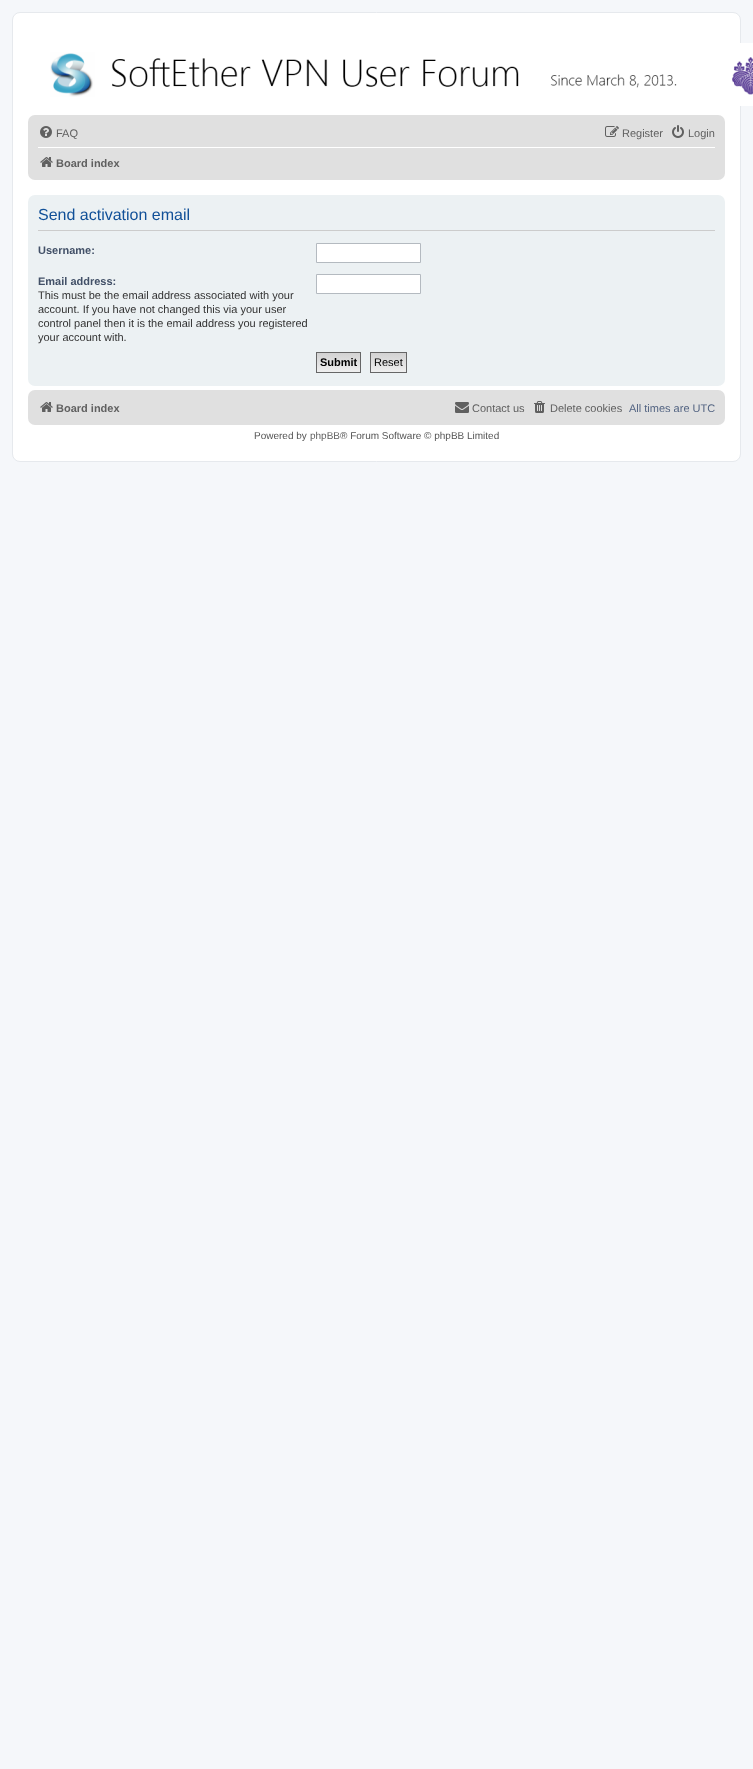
async function draw(canvas) {
  canvas.width = 753;
  canvas.height = 1769;
  const ctx = canvas.getContext('2d');
  ctx.miterLimit = 4;
  ctx.fontKerning = 'normal';
  function label(s, x, y, font, color) {
    ctx.font = font;
    ctx.fillStyle = color;
    ctx.fillText(s, x, y);
  }
  function rect(x, y, w, h, color) {
    ctx.fillStyle = color;
    ctx.fillRect(x, y, w, h);
  }
  function roundedRect(x, y, w, h, r, color) {
    ctx.fillStyle = color;
    ctx.beginPath();
    ctx.roundRect(x, y, w, h, r);
    ctx.fill();
  }
  async function image(src, x, y, w, h) {
    const img = new Image();
    img.src = src;
    await img.decode();
    ctx.drawImage(img, x, y, w, h);
  }
  let gradient;

  rect(0, 0, 753, 1769, '#f5f7fa');
  ctx.fillStyle = '#fff';
  ctx.beginPath();
  ctx.roundRect(12.5, 12.5, 728, 449, 7.5);
  ctx.fill();
  ctx.strokeStyle = '#e6e9ed';
  ctx.stroke();
  await image('assets/img1.png', 50, 43, 703, 63);
  roundedRect(28, 115, 697, 65, 7, '#e0e0e0');
  await image('assets/img2.png', 40, 126, 12, 12);
  label('FAQ', 56, 137, '11px Liberation Sans', '#606060');
  await image('assets/img3.png', 605, 126, 14, 11);
  label('Register', 622, 137, '11px Liberation Sans', '#606060');
  await image('assets/img4.png', 672, 125, 12, 13);
  label('Login', 688, 137, '11px Liberation Sans', '#606060');
  rect(38, 147, 677, 1, '#fff');
  await image('assets/img5.png', 40, 157, 13, 10);
  label('Board index', 56, 167, 'bold 11px Liberation Sans', '#606060');
  roundedRect(28, 195, 697, 191, 7, '#ecf1f3');
  rect(38, 230, 677, 1, '#ccc');
  label('Send activation email', 38, 220, '16px Liberation Sans', '#115098');
  label('Username:', 38, 254, 'bold 11px Liberation Sans', '#425067');
  ctx.fillStyle = '#fff';
  ctx.beginPath();
  ctx.rect(316.5, 243.5, 104, 19);
  ctx.fill();
  ctx.strokeStyle = '#b4bac0';
  ctx.stroke();
  label('Email address:', 38, 285, 'bold 11px Liberation Sans', '#425067');
  label('This must be the email address associated with your', 38, 299, '11px Liberation Sans', '#333');
  label('account. If you have not changed this via your user', 38, 313, '11px Liberation Sans', '#333');
  label('control panel then it is the email address you registered', 38, 327, '11px Liberation Sans', '#333');
  label('your account with.', 38, 341, '11px Liberation Sans', '#333');
  ctx.fillStyle = '#fff';
  ctx.beginPath();
  ctx.rect(316.5, 274.5, 104, 19);
  ctx.fill();
  ctx.stroke();
  gradient = ctx.createLinearGradient(339, 353, 339, 372);
  gradient.addColorStop(0, '#d2d2d2');
  gradient.addColorStop(1, '#efefef');
  ctx.fillStyle = gradient;
  ctx.fillRect(317, 353, 43, 19);
  ctx.strokeStyle = '#666';
  ctx.strokeRect(316.5, 352.5, 44, 20);
  label('Submit', 320, 366, 'bold 11px Liberation Sans', '#000');
  gradient = ctx.createLinearGradient(389, 353, 389, 372);
  gradient.addColorStop(0, '#d2d2d2');
  gradient.addColorStop(1, '#efefef');
  ctx.fillStyle = gradient;
  ctx.fillRect(371, 353, 35, 19);
  ctx.strokeRect(370.5, 352.5, 36, 20);
  label('Reset', 374, 366, '11px Liberation Sans', '#000');
  roundedRect(28, 390, 697, 35, 7, '#e0e0e0');
  await image('assets/img5.png', 40, 402, 13, 10);
  label('Board index', 56, 412, 'bold 11px Liberation Sans', '#606060');
  await image('assets/img6.png', 455, 402, 14, 11);
  label('Contact us', 472, 412, '11px Liberation Sans', '#606060');
  await image('assets/img7.png', 534, 401, 11, 12);
  label('Delete cookies', 550, 412, '11px Liberation Sans', '#606060');
  label('All times are UTC', 629, 412, '11px Liberation Sans', '#536482');
  label('Powered by', 254, 439, '10px Liberation Sans', '#555');
  label('phpBB', 310, 439, '10px Liberation Sans', '#606060');
  label('® Forum Software © phpBB Limited', 340, 439, '10px Liberation Sans', '#555');
}

draw(document.querySelector('canvas'));
